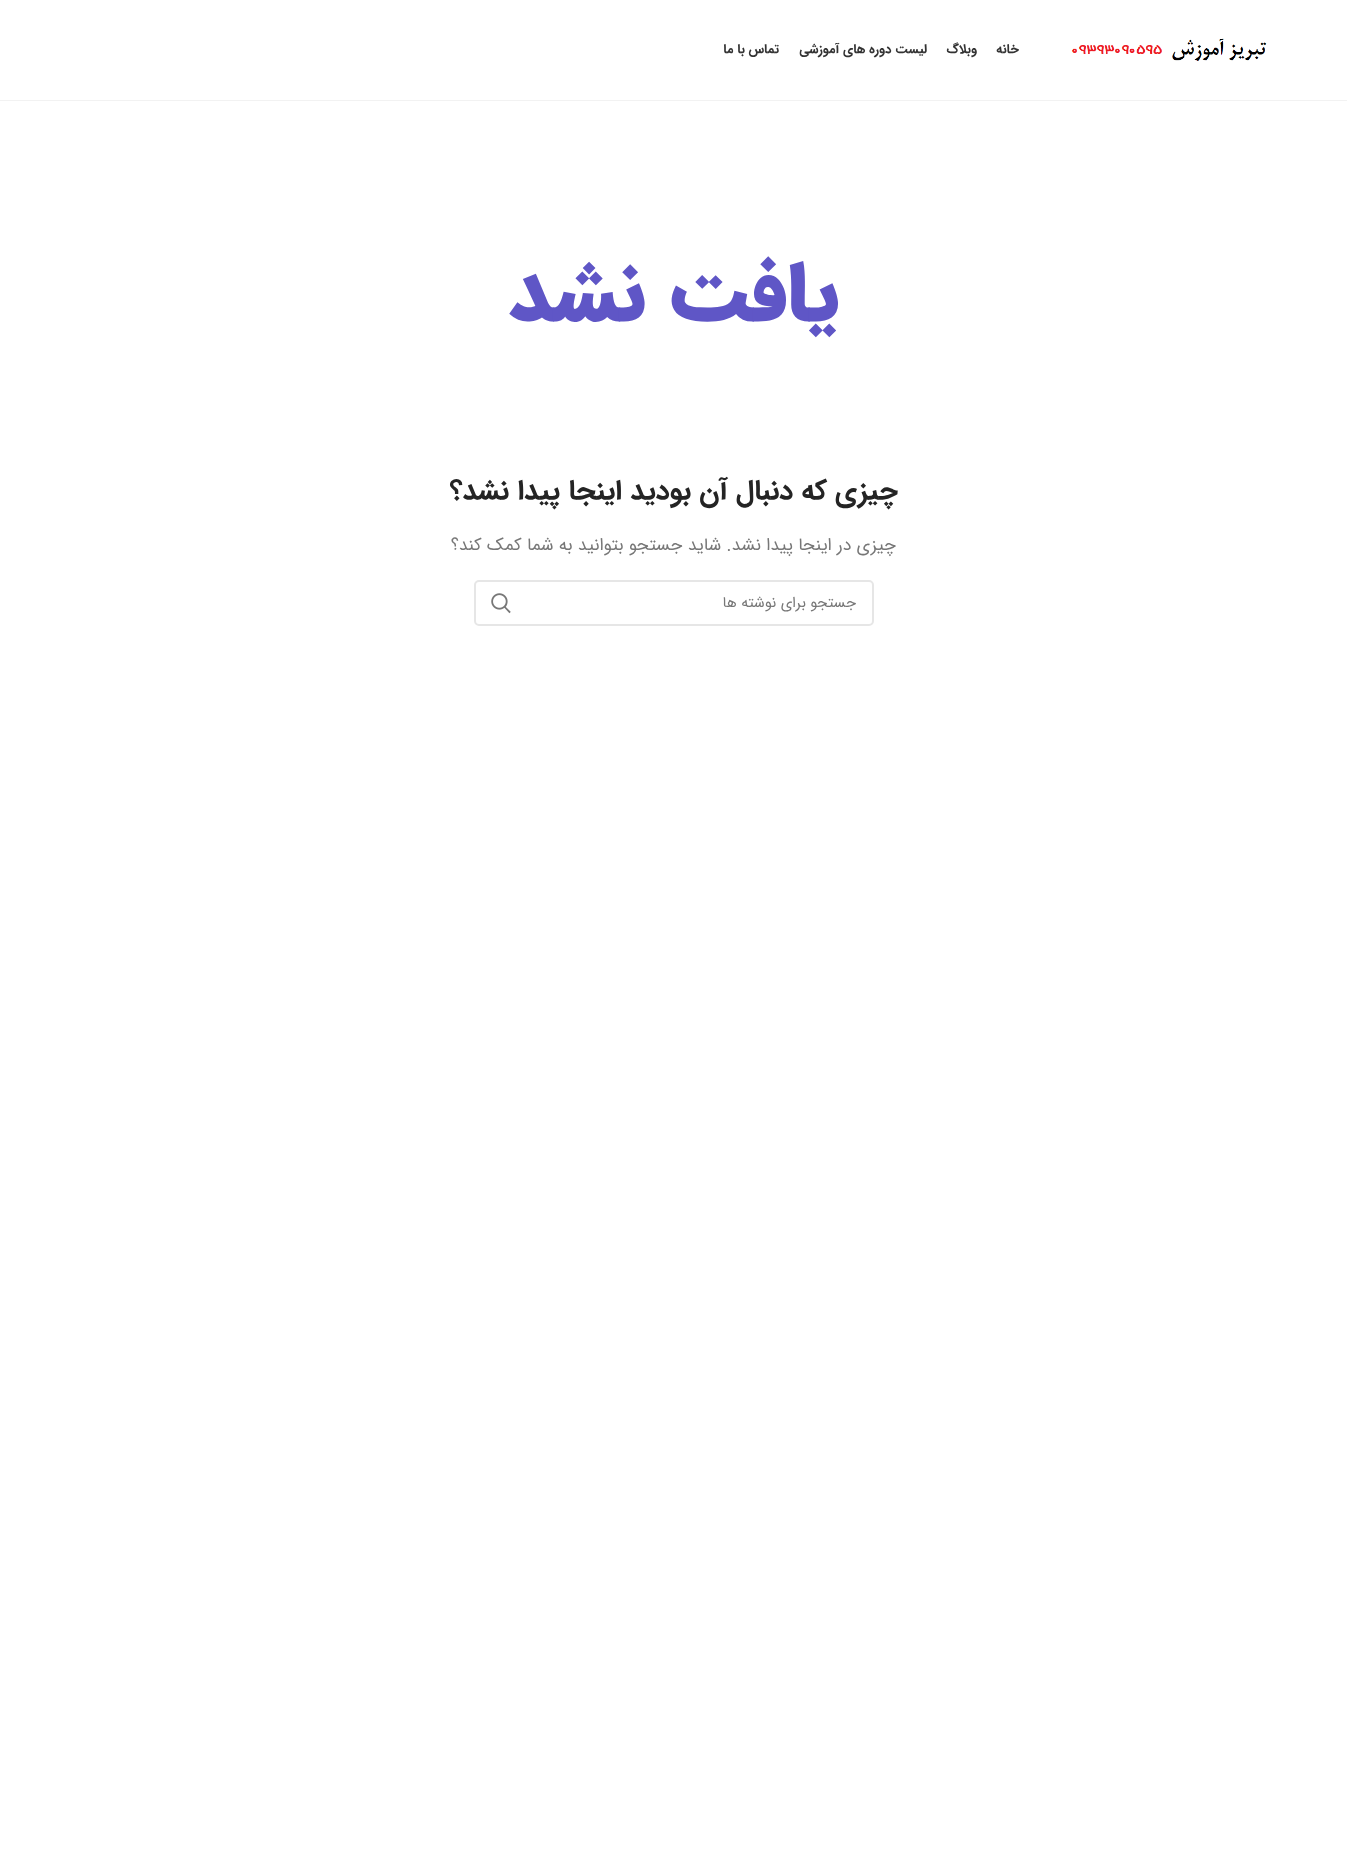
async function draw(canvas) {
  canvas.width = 1347;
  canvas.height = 1864;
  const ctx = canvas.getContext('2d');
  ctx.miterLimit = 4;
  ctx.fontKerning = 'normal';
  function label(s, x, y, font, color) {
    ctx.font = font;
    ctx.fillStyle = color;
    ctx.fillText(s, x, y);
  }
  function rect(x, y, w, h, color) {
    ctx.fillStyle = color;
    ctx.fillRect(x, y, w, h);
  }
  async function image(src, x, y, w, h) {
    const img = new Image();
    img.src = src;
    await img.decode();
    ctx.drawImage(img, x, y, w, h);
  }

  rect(0, 0, 1347, 1864, '#fff');
  rect(0, 100, 1347, 1, '#f2f2f2');
  await image('assets/img1.png', 1071, 38, 196, 23);
  ctx.direction = 'rtl';
  label('خانه', 1019, 53, 'bold 13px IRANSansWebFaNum', '#333');
  label('وبلاگ', 977, 53, 'bold 13px IRANSansWebFaNum', '#333');
  label('لیست دوره های آموزشی', 927, 53, 'bold 13px IRANSansWebFaNum', '#333');
  label('تماس با ما', 779, 53, 'bold 13px IRANSansWebFaNum', '#333');
  label('یافت نشد', 839, 318, '900 82px IRANSansWebFaNum', '#5f56c6');
  label('چیزی که دنبال آن بودید اینجا پیدا نشد؟', 898, 499, 'bold 28px IRANSansWebFaNum', '#242424');
  label('چیزی در اینجا پیدا نشد. شاید جستجو بتوانید به شما کمک کند؟', 896, 550, '17.6px IRANSansWebFaNum', '#777');
  ctx.beginPath();
  ctx.roundRect(475, 581, 398, 44, 4);
  ctx.strokeStyle = '#e6e6e6';
  ctx.lineWidth = 2;
  ctx.stroke();
  label('جستجو برای نوشته ها', 856, 607, '15px IRANSansWebFaNum', '#777');
  await image('assets/img2.png', 491, 593, 20, 21);
}

draw(document.querySelector('canvas'));
